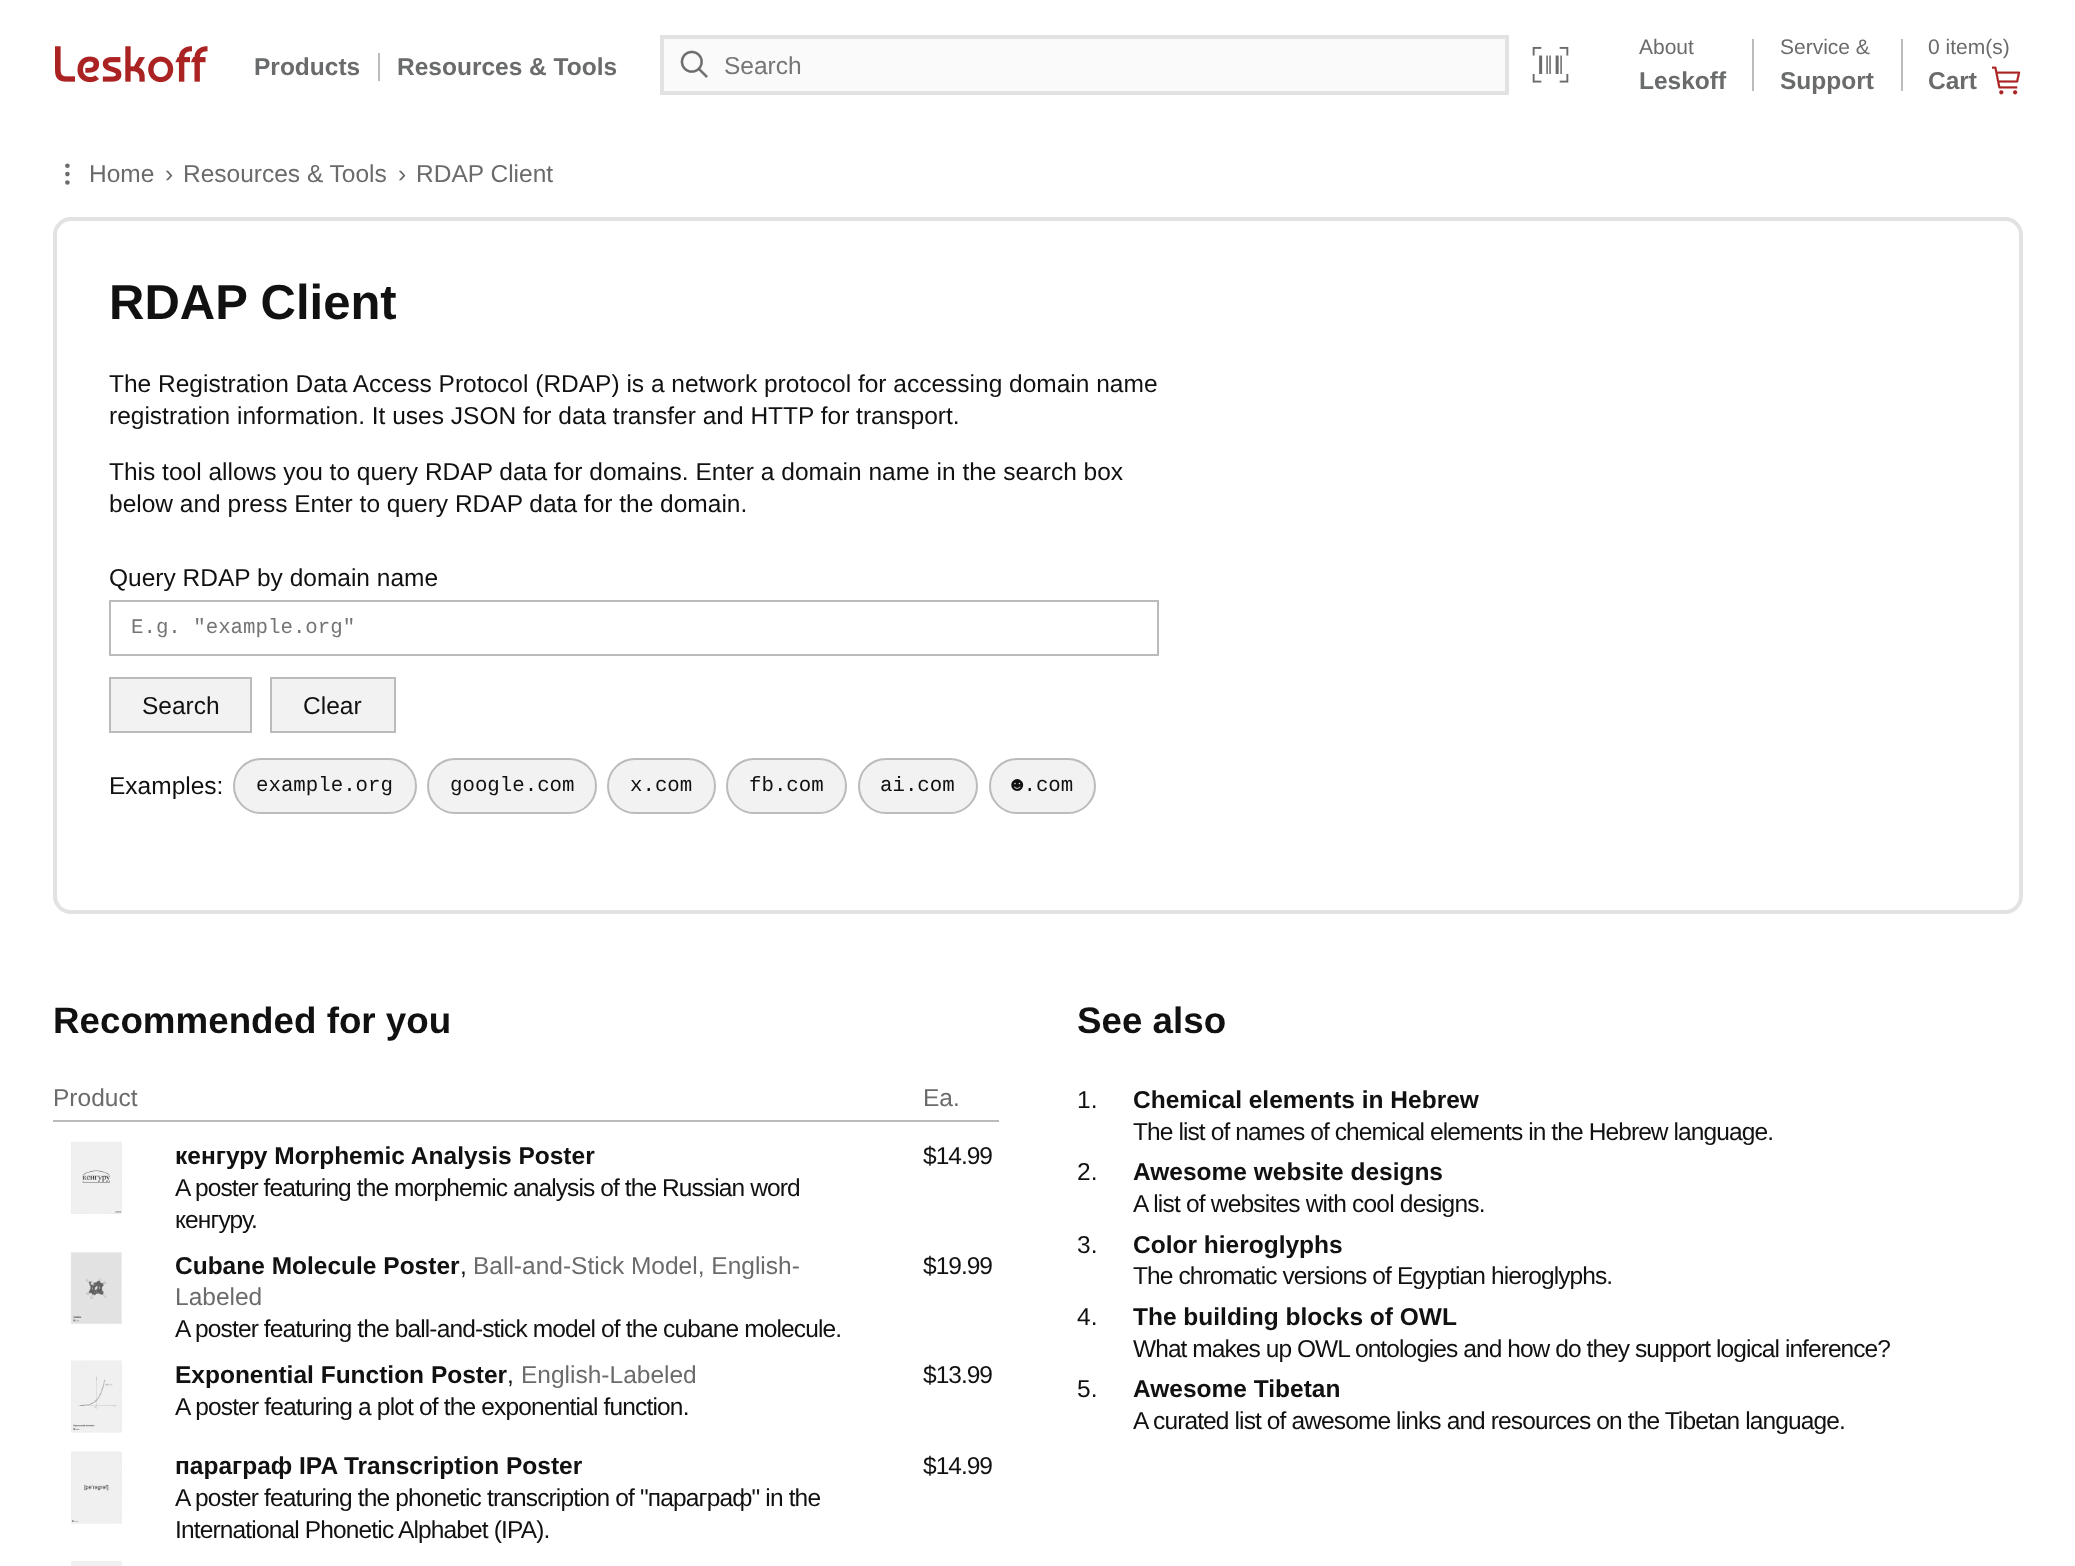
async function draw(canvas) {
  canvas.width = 2075;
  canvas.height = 1566;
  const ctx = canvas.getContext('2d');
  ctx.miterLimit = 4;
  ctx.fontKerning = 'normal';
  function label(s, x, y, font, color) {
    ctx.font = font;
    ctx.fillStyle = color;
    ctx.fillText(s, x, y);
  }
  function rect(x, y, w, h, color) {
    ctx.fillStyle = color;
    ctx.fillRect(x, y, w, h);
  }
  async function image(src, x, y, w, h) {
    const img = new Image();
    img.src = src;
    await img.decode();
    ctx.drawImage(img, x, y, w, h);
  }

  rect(0, 0, 2075, 1566, '#fff');
  await image('assets/img1.png', 55, 46, 153, 37);
  label('Products', 254, 75, 'bold 24.5px Liberation Sans', '#6a6b6c');
  rect(378, 53, 2, 28, '#bbb');
  label('Resources & Tools', 397, 75, 'bold 24.5px Liberation Sans', '#6a6b6c');
  ctx.fillStyle = '#fafafa';
  ctx.beginPath();
  ctx.rect(662, 37, 845, 56);
  ctx.fill();
  ctx.strokeStyle = '#e2e2e2';
  ctx.lineWidth = 4;
  ctx.stroke();
  await image('assets/img2.png', 680, 50, 28, 28);
  label('Search', 724, 74, '24.5px Liberation Sans', '#757575');
  await image('assets/img3.png', 1532, 46, 37, 37);
  label('About', 1639, 54, '21px Liberation Sans', '#6a6b6c');
  label('Leskoff', 1639, 89, 'bold 24.5px Liberation Sans', '#6a6b6c');
  rect(1752, 39, 2, 52, '#bbb');
  label('Service &', 1780, 54, '21px Liberation Sans', '#6a6b6c');
  label('Support', 1780, 89, 'bold 24.5px Liberation Sans', '#6a6b6c');
  rect(1901, 39, 2, 52, '#bbb');
  label('0 item(s)', 1928, 54, '21px Liberation Sans', '#6a6b6c');
  label('Cart', 1928, 89, 'bold 24.5px Liberation Sans', '#6a6b6c');
  await image('assets/img4.png', 1992, 66, 29, 29);
  ctx.beginPath();
  ctx.arc(67.4, 165.8, 2.3, 0, 2 * Math.PI);
  ctx.fill();
  ctx.beginPath();
  ctx.arc(67.4, 174.1, 2.3, 0, 2 * Math.PI);
  ctx.fill();
  ctx.beginPath();
  ctx.arc(67.4, 182.5, 2.3, 0, 2 * Math.PI);
  ctx.fill();
  label('Home', 89, 182, '24.5px Liberation Sans', '#6a6b6c');
  label('›', 165, 182, '24.5px Liberation Sans', '#6a6b6c');
  label('Resources & Tools', 183, 182, '24.5px Liberation Sans', '#6a6b6c');
  label('›', 398, 182, '24.5px Liberation Sans', '#6a6b6c');
  label('RDAP Client', 416, 182, '24.5px Liberation Sans', '#6a6b6c');
  ctx.beginPath();
  ctx.roundRect(55, 219, 1966, 693, 16);
  ctx.stroke();
  label('RDAP Client', 109, 319, 'bold 49px Liberation Sans', '#111');
  label('The Registration Data Access Protocol (RDAP) is a network protocol for accessing domain name', 109, 392, '24.5px Liberation Sans', '#111');
  label('registration information. It uses JSON for data transfer and HTTP for transport.', 109, 424, '24.5px Liberation Sans', '#111');
  label('This tool allows you to query RDAP data for domains. Enter a domain name in the search box', 109, 480, '24.5px Liberation Sans', '#111');
  label('below and press Enter to query RDAP data for the domain.', 109, 512, '24.5px Liberation Sans', '#111');
  label('Query RDAP by domain name', 109, 586, '24.5px Liberation Sans', '#111');
  ctx.strokeStyle = '#bbb';
  ctx.lineWidth = 2;
  ctx.strokeRect(110, 601, 1048, 54);
  label('E.g. "example.org"', 131, 633, '20.75px Liberation Mono', '#757575');
  ctx.fillStyle = '#f2f2f2';
  ctx.beginPath();
  ctx.rect(110, 678, 141, 54);
  ctx.fill();
  ctx.stroke();
  label('Search', 142, 714, '24.5px Liberation Sans', '#111');
  ctx.fillStyle = '#f2f2f2';
  ctx.beginPath();
  ctx.rect(271, 678, 124, 54);
  ctx.fill();
  ctx.stroke();
  label('Clear', 303, 714, '24.5px Liberation Sans', '#111');
  label('Examples:', 109, 794, '24.5px Liberation Sans', '#111');
  ctx.fillStyle = '#f2f2f2';
  ctx.beginPath();
  ctx.roundRect(234, 759, 182, 54, 27);
  ctx.fill();
  ctx.stroke();
  label('example.org', 256, 791, '20.75px Liberation Mono', '#111');
  ctx.fillStyle = '#f2f2f2';
  ctx.beginPath();
  ctx.roundRect(428, 759, 168, 54, 27);
  ctx.fill();
  ctx.stroke();
  label('google.com', 450, 791, '20.75px Liberation Mono', '#111');
  ctx.fillStyle = '#f2f2f2';
  ctx.beginPath();
  ctx.roundRect(608, 759, 107, 54, 27);
  ctx.fill();
  ctx.stroke();
  label('x.com', 630, 791, '20.75px Liberation Mono', '#111');
  ctx.fillStyle = '#f2f2f2';
  ctx.beginPath();
  ctx.roundRect(727, 759, 119, 54, 27);
  ctx.fill();
  ctx.stroke();
  label('fb.com', 749, 791, '20.75px Liberation Mono', '#111');
  ctx.fillStyle = '#f2f2f2';
  ctx.beginPath();
  ctx.roundRect(859, 759, 118, 54, 27);
  ctx.fill();
  ctx.stroke();
  label('ai.com', 880, 791, '20.75px Liberation Mono', '#111');
  ctx.fillStyle = '#f2f2f2';
  ctx.beginPath();
  ctx.roundRect(990, 759, 105, 54, 27);
  ctx.fill();
  ctx.stroke();
  label('☻.com', 1011, 791, '20.75px Liberation Mono', '#111');
  label('Recommended for you', 53, 1033, 'bold 36.75px Liberation Sans', '#111');
  rect(53, 1120, 946, 2, '#bbb');
  label('Product', 53, 1106, '24.5px Liberation Sans', '#6a6b6c');
  label('Ea.', 923, 1106, '24.5px Liberation Sans', '#6a6b6c');
  await image('assets/img5.png', 71, 1141, 51, 73);
  label('кенгуру Morphemic Analysis Poster', 175, 1164, 'bold 24.5px Liberation Sans', '#111');
  ctx.letterSpacing = '-0.9px';
  label('A poster featuring the morphemic analysis of the Russian word', 175, 1196, '24.5px Liberation Sans', '#111');
  label('кенгуру.', 175, 1228, '24.5px Liberation Sans', '#111');
  ctx.letterSpacing = '-1px';
  label('$14.99', 923, 1164, '24.5px Liberation Sans', '#111');
  await image('assets/img6.png', 70, 1252, 52, 72);
  ctx.letterSpacing = '0px';
  label('Cubane Molecule Poster', 175, 1274, 'bold 24.5px Liberation Sans', '#111');
  label(',', 460, 1274, '24.5px Liberation Sans', '#111');
  label('Ball-and-Stick Model, English-', 473, 1274, '24.5px Liberation Sans', '#6a6b6c');
  label('Labeled', 175, 1305, '24.5px Liberation Sans', '#6a6b6c');
  ctx.letterSpacing = '-0.87px';
  label('A poster featuring the ball-and-stick model of the cubane molecule.', 175, 1337, '24.5px Liberation Sans', '#111');
  ctx.letterSpacing = '-1px';
  label('$19.99', 923, 1274, '24.5px Liberation Sans', '#111');
  await image('assets/img7.png', 71, 1360, 51, 73);
  ctx.letterSpacing = '0px';
  label('Exponential Function Poster', 175, 1383, 'bold 24.5px Liberation Sans', '#111');
  label(',', 507, 1383, '24.5px Liberation Sans', '#111');
  label('English-Labeled', 521, 1383, '24.5px Liberation Sans', '#6a6b6c');
  ctx.letterSpacing = '-0.83px';
  label('A poster featuring a plot of the exponential function.', 175, 1415, '24.5px Liberation Sans', '#111');
  ctx.letterSpacing = '-1px';
  label('$13.99', 923, 1383, '24.5px Liberation Sans', '#111');
  await image('assets/img8.png', 71, 1451, 51, 73);
  ctx.letterSpacing = '0px';
  label('параграф IPA Transcription Poster', 175, 1474, 'bold 24.5px Liberation Sans', '#111');
  ctx.letterSpacing = '-0.85px';
  label('A poster featuring the phonetic transcription of "параграф" in the', 175, 1506, '24.5px Liberation Sans', '#111');
  label('International Phonetic Alphabet (IPA).', 175, 1538, '24.5px Liberation Sans', '#111');
  ctx.letterSpacing = '-1px';
  label('$14.99', 923, 1474, '24.5px Liberation Sans', '#111');
  rect(71, 1561, 51, 5, '#f0f0f0');
  ctx.letterSpacing = '0px';
  label('See also', 1077, 1033, 'bold 36.75px Liberation Sans', '#111');
  label('1.', 1077, 1108, '24.5px Liberation Sans', '#111');
  label('Chemical elements in Hebrew', 1133, 1108, 'bold 24.5px Liberation Sans', '#111');
  ctx.letterSpacing = '-0.9px';
  label('The list of names of chemical elements in the Hebrew language.', 1133, 1140, '24.5px Liberation Sans', '#111');
  ctx.letterSpacing = '0px';
  label('2.', 1077, 1180, '24.5px Liberation Sans', '#111');
  label('Awesome website designs', 1133, 1180, 'bold 24.5px Liberation Sans', '#111');
  ctx.letterSpacing = '-0.8px';
  label('A list of websites with cool designs.', 1133, 1212, '24.5px Liberation Sans', '#111');
  ctx.letterSpacing = '0px';
  label('3.', 1077, 1253, '24.5px Liberation Sans', '#111');
  label('Color hieroglyphs', 1133, 1253, 'bold 24.5px Liberation Sans', '#111');
  ctx.letterSpacing = '-0.9px';
  label('The chromatic versions of Egyptian hieroglyphs.', 1133, 1284, '24.5px Liberation Sans', '#111');
  ctx.letterSpacing = '0px';
  label('4.', 1077, 1325, '24.5px Liberation Sans', '#111');
  label('The building blocks of OWL', 1133, 1325, 'bold 24.5px Liberation Sans', '#111');
  ctx.letterSpacing = '-0.93px';
  label('What makes up OWL ontologies and how do they support logical inference?', 1133, 1357, '24.5px Liberation Sans', '#111');
  ctx.letterSpacing = '0px';
  label('5.', 1077, 1397, '24.5px Liberation Sans', '#111');
  label('Awesome Tibetan', 1133, 1397, 'bold 24.5px Liberation Sans', '#111');
  ctx.letterSpacing = '-0.88px';
  label('A curated list of awesome links and resources on the Tibetan language.', 1133, 1429, '24.5px Liberation Sans', '#111');
}

draw(document.querySelector('canvas'));
